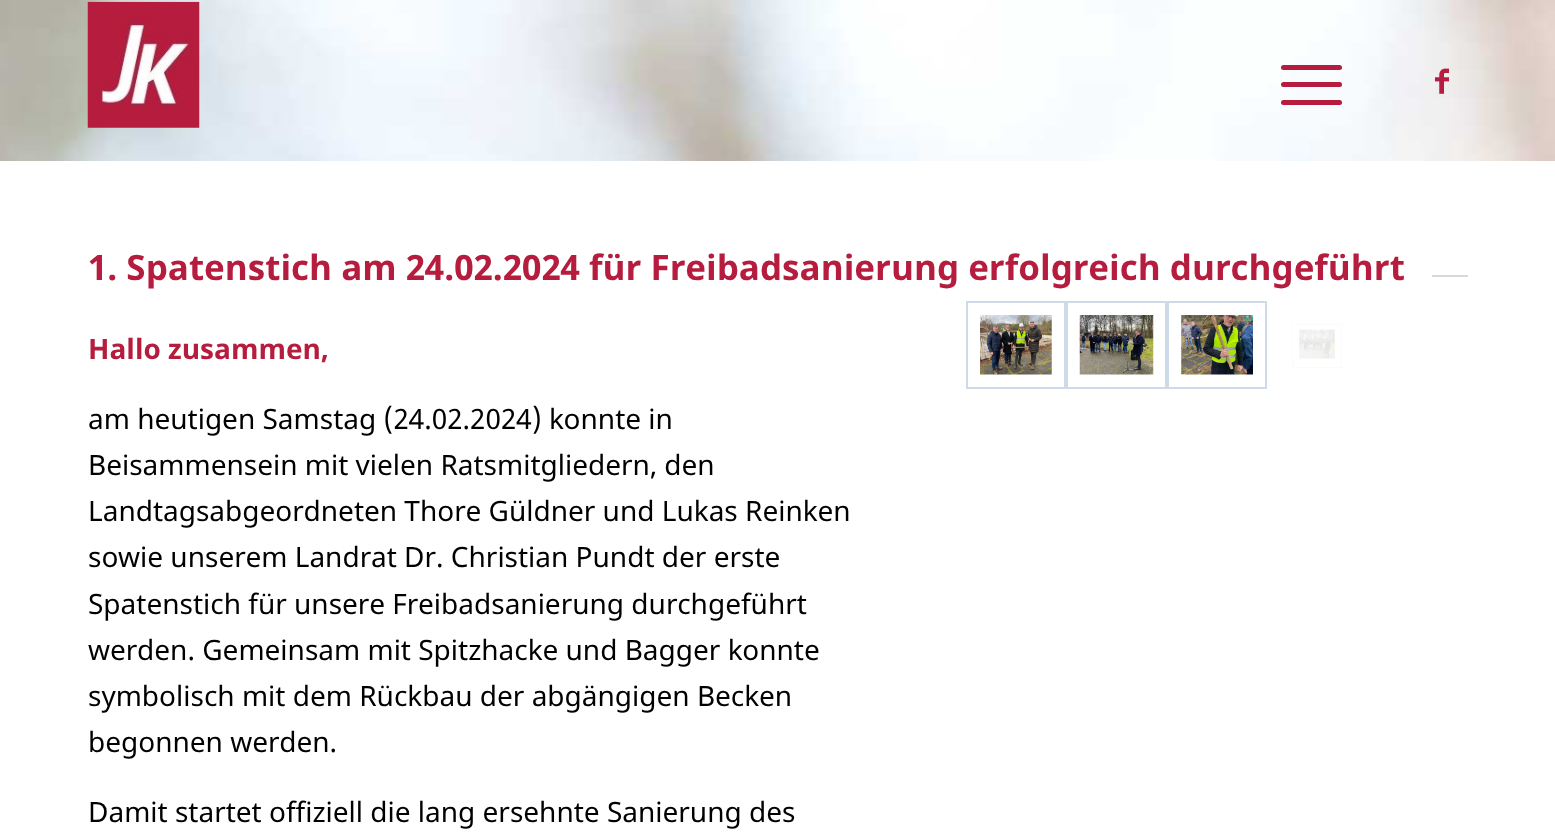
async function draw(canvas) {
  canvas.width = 1555;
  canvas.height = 833;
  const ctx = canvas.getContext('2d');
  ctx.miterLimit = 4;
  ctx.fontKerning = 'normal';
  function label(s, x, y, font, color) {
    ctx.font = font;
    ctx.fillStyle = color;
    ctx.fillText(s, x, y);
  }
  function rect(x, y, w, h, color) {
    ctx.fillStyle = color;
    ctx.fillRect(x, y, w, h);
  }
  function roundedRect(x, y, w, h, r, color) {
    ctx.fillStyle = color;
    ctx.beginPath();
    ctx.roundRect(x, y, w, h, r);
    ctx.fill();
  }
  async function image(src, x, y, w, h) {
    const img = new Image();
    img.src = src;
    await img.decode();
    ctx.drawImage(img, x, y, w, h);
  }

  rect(0, 0, 1555, 833, '#fff');
  await image('assets/img1.png', 0, 0, 1555, 161);
  await image('assets/img2.png', 87, 1, 113, 127);
  roundedRect(1281, 82, 61, 5, 2.5, '#b61c3d');
  roundedRect(1281, 65, 61, 5, 2.5, '#b61c3d');
  roundedRect(1281, 100, 61, 5, 2.5, '#b61c3d');
  await image('assets/img3.png', 1435, 68, 14, 26);
  label('1. Spatenstich am 24.02.2024 für Freibadsanierung erfolgreich durchgeführt', 88, 280, 'bold 35px Noto Sans', '#b61c3d');
  rect(1432, 275, 36, 2, '#d9d9d9');
  label('Hallo zusammen,', 88, 359, 'bold 28px Noto Sans', '#b61c3d');
  label('am heutigen Samstag (24.02.2024) konnte in', 88, 429, '28px Noto Sans', '#000');
  label('Beisammensein mit vielen Ratsmitgliedern, den', 88, 475, '28px Noto Sans', '#000');
  label('Landtagsabgeordneten Thore Güldner und Lukas Reinken', 88, 521, '28px Noto Sans', '#000');
  label('sowie unserem Landrat Dr. Christian Pundt der erste', 88, 567, '28px Noto Sans', '#000');
  label('Spatenstich für unsere Freibadsanierung durchgeführt', 88, 614, '28px Noto Sans', '#000');
  label('werden. Gemeinsam mit Spitzhacke und Bagger konnte', 88, 660, '28px Noto Sans', '#000');
  label('symbolisch mit dem Rückbau der abgängigen Becken', 88, 706, '28px Noto Sans', '#000');
  label('begonnen werden.', 88, 752, '28px Noto Sans', '#000');
  label('Damit startet offiziell die lang ersehnte Sanierung des', 88, 822, '28px Noto Sans', '#000');
  ctx.strokeStyle = '#cedae9';
  ctx.lineWidth = 2;
  ctx.strokeRect(967, 302, 98, 86);
  await image('assets/img4.png', 980, 315, 72, 60);
  ctx.strokeRect(1067, 302, 99, 86);
  await image('assets/img5.png', 1079, 315, 75, 60);
  ctx.strokeRect(1168, 302, 98, 86);
  await image('assets/img6.png', 1181, 315, 72, 60);
  ctx.strokeStyle = '#fafbfd';
  ctx.lineWidth = 0.9;
  ctx.strokeRect(1292.45, 324.45, 49.1, 43.1);
  await image('assets/img7.png', 1299, 329, 36, 30);
}

draw(document.querySelector('canvas'));
